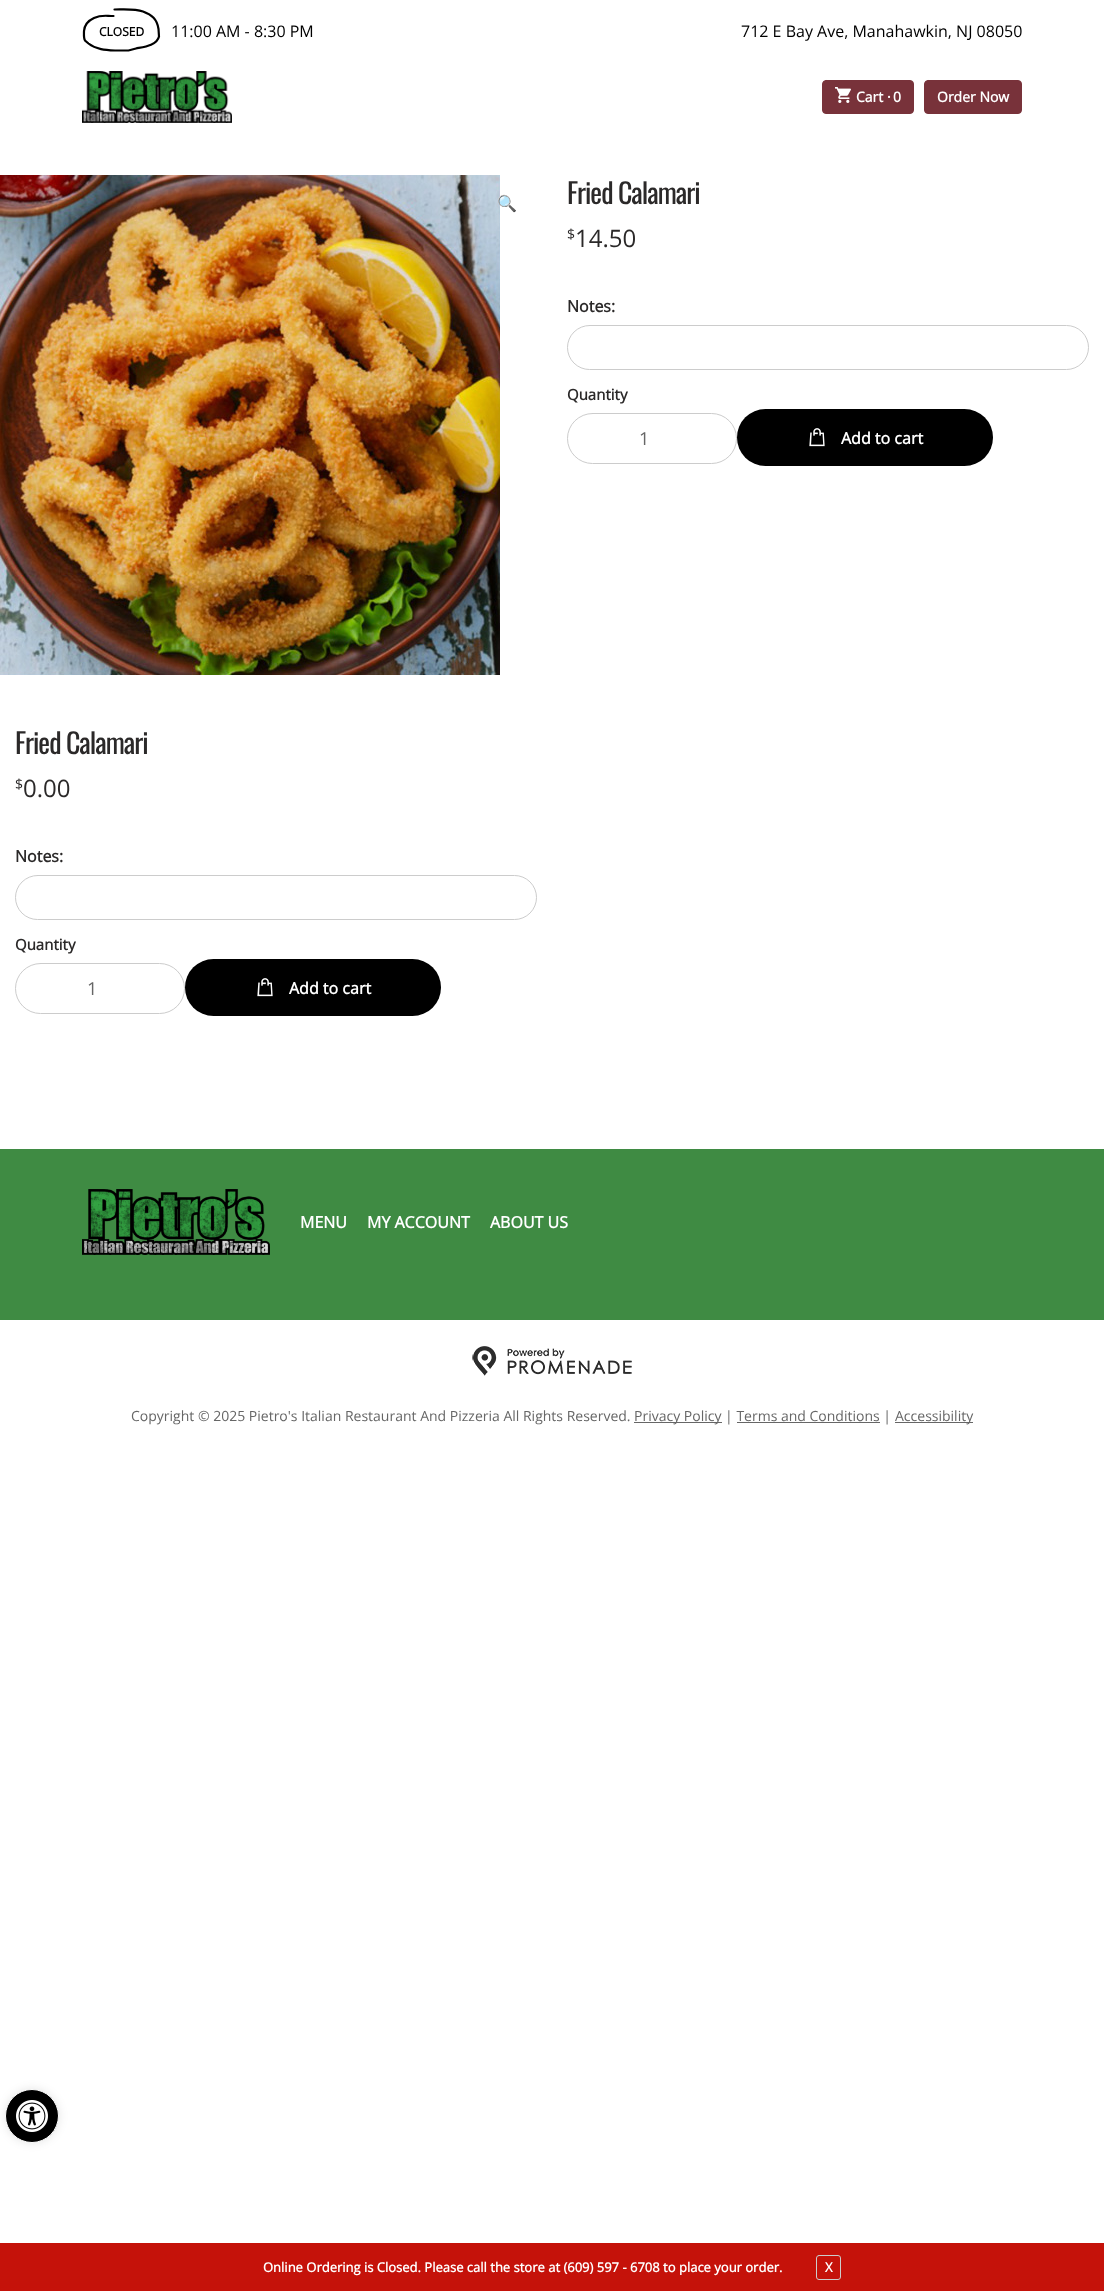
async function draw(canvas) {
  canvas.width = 1104;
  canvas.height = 2291;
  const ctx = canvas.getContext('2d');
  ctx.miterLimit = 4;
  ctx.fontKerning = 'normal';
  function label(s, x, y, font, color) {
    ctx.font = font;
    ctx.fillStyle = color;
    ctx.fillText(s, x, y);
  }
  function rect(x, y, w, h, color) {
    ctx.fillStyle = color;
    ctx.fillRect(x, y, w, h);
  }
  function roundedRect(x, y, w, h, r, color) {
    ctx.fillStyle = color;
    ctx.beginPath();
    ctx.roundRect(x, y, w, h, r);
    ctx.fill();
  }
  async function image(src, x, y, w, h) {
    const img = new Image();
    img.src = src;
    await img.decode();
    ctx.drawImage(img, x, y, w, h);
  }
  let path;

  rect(0, 0, 1104, 2291, '#fff');
  path = new Path2D('M113.5 16C105.5 16 101.5 14.5 94 18C88.5 20.5 84.5 25 84 31C84 34 83.5 38 85 40.5L88.5 43.5C96 49.5 105.5 50 115 50.5H128.5L136 48.5C143 47 157 45.5 159 36.5L158.5 29C157 19 152 15 143 11.5C135 8.5 123 9.5 114.5 9.5');
  ctx.strokeStyle = '#000';
  ctx.lineWidth = 2.2;
  ctx.lineCap = 'round';
  ctx.stroke(path);
  label('CLOSED', 99, 36, 'bold 12px Open Sans', '#000');
  label('11:00 AM - 8:30 PM', 171, 37, '16px Open Sans', '#000');
  label('712 E Bay Ave, Manahawkin, NJ 08050', 741, 37, '16px Open Sans', '#000');
  await image('assets/img1.png', 82, 71, 150, 52);
  ctx.fillStyle = '#78323a';
  ctx.beginPath();
  ctx.roundRect(822.5, 80.5, 91, 33, 3.5);
  ctx.fill();
  ctx.strokeStyle = '#78323a';
  ctx.lineWidth = 1;
  ctx.stroke();
  await image('assets/img2.png', 835, 87, 16, 16);
  label('Cart ·', 856, 102, 'bold 14px Open Sans', '#fff');
  label('0', 893, 102, 'bold 14px Open Sans', '#fff');
  ctx.fillStyle = '#78323a';
  ctx.beginPath();
  ctx.roundRect(924.5, 80.5, 97, 33, 3.5);
  ctx.fill();
  ctx.stroke();
  label('Order Now', 937, 102, 'bold 14px Open Sans', '#fff');
  await image('assets/img3.png', 0, 175, 500, 500);
  label('🔍', 497, 209, '16px Noto Color Emoji', '#2b2929');
  ctx.letterSpacing = '-1px';
  label('Fried Calamari', 567, 204, '28px Oswald', '#2b2929');
  ctx.letterSpacing = '0px';
  label('$', 567, 239, '14px Open Sans', '#2b2929');
  label('14.50', 575, 247, '24px Open Sans', '#2b2929');
  label('Notes:', 567, 312, 'bold 16px Open Sans', '#2b2929');
  ctx.beginPath();
  ctx.roundRect(567.5, 325.5, 521, 44, 22);
  ctx.strokeStyle = '#ccc';
  ctx.stroke();
  label('Quantity', 567, 400, 'bold 15px Open Sans', '#2b2929');
  ctx.beginPath();
  ctx.roundRect(567.5, 413.5, 169, 50, 25);
  ctx.stroke();
  label('1', 639, 445, '18px Open Sans', '#666');
  roundedRect(737, 409, 256, 57, 28.5, '#000');
  await image('assets/img4.png', 809, 428, 16, 19);
  label('Add to cart', 841, 444, 'bold 16px Open Sans', '#fff');
  ctx.letterSpacing = '-1px';
  label('Fried Calamari', 15, 754, '28px Oswald', '#2b2929');
  ctx.letterSpacing = '0px';
  label('$', 15, 789, '14px Open Sans', '#2b2929');
  label('0.00', 23, 797, '24px Open Sans', '#2b2929');
  label('Notes:', 15, 862, 'bold 16px Open Sans', '#2b2929');
  ctx.beginPath();
  ctx.roundRect(15.5, 875.5, 521, 44, 22);
  ctx.stroke();
  label('Quantity', 15, 950, 'bold 15px Open Sans', '#2b2929');
  ctx.beginPath();
  ctx.roundRect(15.5, 963.5, 169, 50, 25);
  ctx.stroke();
  label('1', 87, 995, '18px Open Sans', '#666');
  roundedRect(185, 959, 256, 57, 28.5, '#000');
  await image('assets/img4.png', 257, 978, 16, 19);
  label('Add to cart', 289, 994, 'bold 16px Open Sans', '#fff');
  rect(0, 1149, 1104, 171, '#3f8b43');
  await image('assets/img5.png', 82, 1189, 188, 66);
  label('MENU', 300, 1228, 'bold 16px Open Sans', '#fff');
  label('MY ACCOUNT', 367, 1228, 'bold 16px Open Sans', '#fff');
  label('ABOUT US', 490, 1228, 'bold 16px Open Sans', '#fff');
  await image('assets/img6.png', 472, 1346, 160, 30);
  label('Copyright © 2025 Pietro\'s Italian Restaurant And Pizzeria All Rights Reserved.', 131, 1421, '14px Open Sans', '#666');
  rect(634, 1422, 88, 1, '#666');
  label('Privacy Policy | Terms and Conditions |', 634, 1421, '14px Open Sans', '#666');
  rect(895, 1422, 78, 1, '#666');
  label('Accessibility', 895, 1421, '14px Open Sans', '#666');
  rect(737, 1422, 143, 1, '#666');
  ctx.fillStyle = '#0000001a';
  ctx.filter = 'blur(5px)';
  ctx.beginPath();
  ctx.roundRect(5, 2089, 54, 54, 27);
  ctx.fill();
  ctx.filter = 'none';
  ctx.fillStyle = '#000';
  ctx.beginPath();
  ctx.arc(32, 2116, 26.5, 0, 2 * Math.PI);
  ctx.fill();
  ctx.strokeStyle = '#fff';
  ctx.stroke();
  await image('assets/img7.png', 16, 2100, 32, 32);
  rect(0, 2243, 1104, 48, '#c5120a');
  label('Online Ordering is Closed. Please call the store at (609) 597 - 6708 to place your order.', 263, 2272, 'bold 13px Open Sans', '#fff');
  ctx.beginPath();
  ctx.roundRect(816.5, 2255.5, 24, 24, 2.5);
  ctx.strokeStyle = '#ccc';
  ctx.stroke();
  label('X', 825, 2272, 'bold 13px Open Sans', '#fff');
}

draw(document.querySelector('canvas'));
